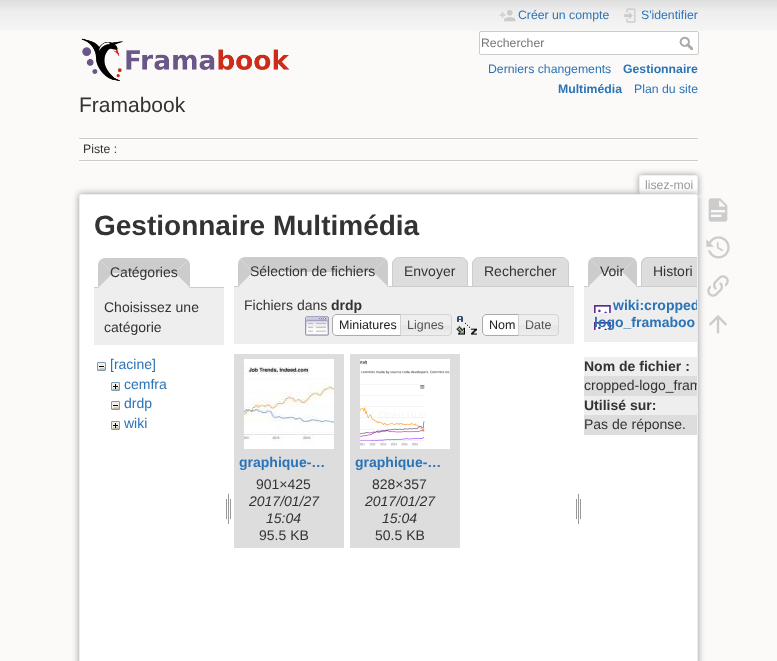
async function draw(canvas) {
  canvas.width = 777;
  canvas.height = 661;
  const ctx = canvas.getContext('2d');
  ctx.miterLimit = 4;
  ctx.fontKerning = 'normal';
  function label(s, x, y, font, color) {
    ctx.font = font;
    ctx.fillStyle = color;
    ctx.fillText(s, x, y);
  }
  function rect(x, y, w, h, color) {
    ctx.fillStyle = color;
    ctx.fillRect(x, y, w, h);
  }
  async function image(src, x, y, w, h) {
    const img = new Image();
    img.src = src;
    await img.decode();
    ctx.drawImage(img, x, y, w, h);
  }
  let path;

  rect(0, 0, 777, 661, '#fbfaf9');
  await image('assets/img1.png', 0, 0, 777, 31);
  await image('assets/img2.png', 499, 10, 17, 12);
  label('Créer un compte', 518, 19, '12.25px Liberation Sans', '#2b73b7');
  await image('assets/img3.png', 624, 8, 12, 15);
  label('S\'identifier', 641, 19, '12.25px Liberation Sans', '#2b73b7');
  ctx.fillStyle = '#fff';
  ctx.beginPath();
  ctx.roundRect(479.5, 31.5, 219, 23, 1.5);
  ctx.fill();
  ctx.strokeStyle = '#ccc';
  ctx.stroke();
  label('Rechercher', 481, 47, '12.25px Liberation Sans', '#757575');
  await image('assets/img4.png', 679, 36, 14, 14);
  label('Derniers changements', 488, 73, '12.25px Liberation Sans', '#2b73b7');
  label('Gestionnaire', 623, 73, 'bold 12.25px Liberation Sans', '#2b73b7');
  label('Multimédia', 558, 93, 'bold 12.25px Liberation Sans', '#2b73b7');
  label('Plan du site', 634, 93, '12.25px Liberation Sans', '#2b73b7');
  await image('assets/img5.png', 81, 38, 209, 43);
  label('Framabook', 79, 112, '21px Liberation Sans', '#333');
  rect(79, 138, 619, 1, '#ccc');
  rect(79, 161, 619, 1, '#fff');
  rect(79, 139, 619, 1, '#fff');
  rect(79, 160, 619, 1, '#ccc');
  label('Piste :', 83, 153, '12.25px Liberation Sans', '#333');
  ctx.save();
  ctx.beginPath();
  ctx.rect(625, 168, 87, 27);
  ctx.clip();
  ctx.fillStyle = '#999';
  ctx.filter = 'blur(3px)';
  ctx.beginPath();
  ctx.roundRect(639, 175, 59, 20, 2);
  ctx.fill();
  ctx.filter = 'none';
  ctx.restore();
  ctx.fillStyle = '#fff';
  ctx.beginPath();
  ctx.roundRect(640, 176, 57, 19, [1, 1, 0, 0]);
  ctx.fill();
  rect(640, 175, 57, 1, '#eee');
  rect(697, 176, 1, 19, '#eee');
  rect(639, 176, 1, 19, '#eee');
  label('lisez-moi', 645, 189, '12.25px Liberation Sans', '#999');
  ctx.filter = 'blur(3.5px)';
  ctx.beginPath();
  ctx.roundRect(79, 194, 619, 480, 2);
  ctx.fill();
  ctx.filter = 'none';
  ctx.fillStyle = '#fff';
  ctx.beginPath();
  ctx.roundRect(79.5, 194.5, 618, 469, 1.5);
  ctx.fill();
  ctx.strokeStyle = '#eee';
  ctx.stroke();
  label('Gestionnaire Multimédia', 94, 235, 'bold 28px Liberation Sans', '#333');
  ctx.fillStyle = '#ccc';
  path = new Path2D('M105 258H183C185 258 187 259 188 260L175 273H113L100 260C101 259 103 258 105 258Z');
  ctx.fill(path);
  rect(94, 287, 130, 1, '#ccc');
  path = new Path2D('M188 260L175 273L190 288V265C190 263 189 261 188 260Z');
  ctx.fill(path);
  ctx.fillStyle = '#eee';
  path = new Path2D('M190 288L175 273H113L98 288Z');
  ctx.fill(path);
  ctx.fillStyle = '#ccc';
  path = new Path2D('M98 288V265C98 263 99 261 100 260L113 273Z');
  ctx.fill(path);
  label('Catégories', 110, 277, '14px Liberation Sans', '#333');
  rect(94, 288, 130, 57, '#eee');
  label('Choisissez une', 104, 312, '14px Liberation Sans', '#333');
  label('catégorie', 104, 332, '14px Liberation Sans', '#333');
  await image('assets/img6.png', 97, 362, 9, 9);
  label('[racine]', 110, 369, '14px Liberation Sans', '#2b73b7');
  await image('assets/img7.png', 111, 382, 9, 9);
  label('cemfra', 124, 389, '14px Liberation Sans', '#2b73b7');
  await image('assets/img6.png', 111, 401, 9, 9);
  label('drdp', 124, 408, '14px Liberation Sans', '#2b73b7');
  await image('assets/img7.png', 111, 421, 9, 9);
  label('wiki', 124, 428, '14px Liberation Sans', '#2b73b7');
  await image('assets/img8.png', 226, 493, 5, 31);
  ctx.fillStyle = '#ccc';
  path = new Path2D('M245 257H381C383 257 385 258 386 259L373 272H253L240 259C241 258 243 257 245 257Z');
  ctx.fill(path);
  ctx.fillStyle = '#ddd';
  ctx.beginPath();
  ctx.roundRect(392.5, 257.5, 75, 29, [6.5, 6.5, 0, 0]);
  ctx.fill();
  ctx.strokeStyle = '#ccc';
  ctx.stroke();
  ctx.beginPath();
  ctx.roundRect(472.5, 257.5, 96, 29, [6.5, 6.5, 0, 0]);
  ctx.fill();
  ctx.stroke();
  rect(234, 286, 340, 1, '#ccc');
  path = new Path2D('M386 259L373 272L388 287V264C388 262 387 260 386 259Z');
  ctx.fill(path);
  ctx.fillStyle = '#eee';
  path = new Path2D('M388 287L373 272H253L238 287Z');
  ctx.fill(path);
  ctx.fillStyle = '#ccc';
  path = new Path2D('M238 287V264C238 262 239 260 240 259L253 272Z');
  ctx.fill(path);
  label('Sélection de fichiers', 250, 276, '14px Liberation Sans', '#333');
  label('Envoyer', 404, 276, '14px Liberation Sans', '#333');
  label('Rechercher', 484, 276, '14px Liberation Sans', '#333');
  rect(234, 287, 340, 57, '#eee');
  label('Fichiers dans', 244, 310, '14px Liberation Sans', '#333');
  label('drdp', 331, 310, 'bold 14px Liberation Sans', '#333');
  await image('assets/img9.png', 305, 316, 24, 20);
  rect(332, 314, 68, 22, '#fff');
  ctx.beginPath();
  ctx.roundRect(332.5, 314.5, 72, 21, [3.5, 0, 0, 3.5]);
  ctx.strokeStyle = '#aaa';
  ctx.stroke();
  label('Miniatures', 339, 329, '12.5px Liberation Sans', '#212121');
  await image('assets/img10.png', 401, 314, 51, 22);
  ctx.beginPath();
  ctx.roundRect(400.5, 314.5, 51, 21, [0, 3.5, 3.5, 0]);
  ctx.strokeStyle = '#d3d3d3';
  ctx.stroke();
  label('Lignes', 407, 329, '12.5px Liberation Sans', '#555');
  await image('assets/img11.png', 456, 316, 21, 19);
  rect(482, 314, 36, 22, '#fff');
  ctx.beginPath();
  ctx.roundRect(482.5, 314.5, 40, 21, [3.5, 0, 0, 3.5]);
  ctx.strokeStyle = '#aaa';
  ctx.stroke();
  label('Nom', 489, 329, '12.5px Liberation Sans', '#212121');
  await image('assets/img12.png', 519, 314, 40, 22);
  ctx.beginPath();
  ctx.roundRect(518.5, 314.5, 40, 21, [0, 3.5, 3.5, 0]);
  ctx.strokeStyle = '#d3d3d3';
  ctx.stroke();
  label('Date', 525, 329, '12.5px Liberation Sans', '#555');
  rect(234, 354, 110, 194, '#ddd');
  await image('assets/img13.png', 244, 359, 90, 90);
  label('graphique-…', 239, 467, 'bold 14px Liberation Sans', '#2b73b7');
  label('901×425', 256, 489, '14px Liberation Sans', '#333');
  label('2017/01/27', 249, 506, 'italic 14px Liberation Sans', '#333');
  label('15:04', 266, 523, 'italic 14px Liberation Sans', '#333');
  label('95.5 KB', 259, 540, '14px Liberation Sans', '#333');
  rect(350, 354, 110, 194, '#ddd');
  await image('assets/img14.png', 360, 359, 90, 90);
  label('graphique-…', 355, 467, 'bold 14px Liberation Sans', '#2b73b7');
  label('828×357', 372, 489, '14px Liberation Sans', '#333');
  label('2017/01/27', 365, 506, 'italic 14px Liberation Sans', '#333');
  label('15:04', 382, 523, 'italic 14px Liberation Sans', '#333');
  label('50.5 KB', 375, 540, '14px Liberation Sans', '#333');
  await image('assets/img8.png', 576, 493, 5, 31);
  ctx.fillStyle = '#ccc';
  path = new Path2D('M595 257H630C632 257 634 258 635 259L622 272H603L590 259C591 258 593 257 595 257Z');
  ctx.fill(path);
  rect(584, 286, 57, 1, '#ccc');
  path = new Path2D('M635 259L622 272L637 287V264C637 262 636 260 635 259Z');
  ctx.fill(path);
  ctx.fillStyle = '#eee';
  path = new Path2D('M637 287L622 272H603L588 287Z');
  ctx.fill(path);
  ctx.fillStyle = '#ccc';
  path = new Path2D('M588 287V264C588 262 589 260 590 259L603 272Z');
  ctx.fill(path);
  label('Voir', 600, 276, '14px Liberation Sans', '#333');
  ctx.fillStyle = '#ddd';
  ctx.beginPath();
  ctx.roundRect(641, 257, 56, 30, [7, 0, 0, 0]);
  ctx.fill();
  ctx.fillStyle = '#ccc';
  path = new Path2D('M648 257C644 257 641 260 641 264V287H697V286H642V264C642 261 645 258 648 258H697V257Z');
  ctx.fill(path);
  label('Histori', 653, 276, '14px Liberation Sans', '#333');
  rect(584, 287, 113, 55, '#eee');
  await image('assets/img15.png', 594, 305, 17, 25);
  ctx.save();
  ctx.beginPath();
  ctx.roundRect(80, 195, 617, 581, 1);
  ctx.clip();
  label('wiki:cropped', 613, 310, 'bold 14px Liberation Sans', '#2b73b7');
  ctx.restore();
  label('logo_framaboo', 594, 327, 'bold 14px Liberation Sans', '#2b73b7');
  rect(584, 357, 113, 19, '#eee');
  label('Nom de fichier :', 584, 371, 'bold 14px Liberation Sans', '#333');
  rect(584, 376, 113, 20, '#ddd');
  ctx.save();
  ctx.beginPath();
  ctx.roundRect(80, 195, 617, 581, 1);
  ctx.clip();
  label('cropped-logo_fram', 584, 390, '14px Liberation Sans', '#333');
  ctx.restore();
  rect(584, 396, 113, 19, '#eee');
  label('Utilisé sur:', 584, 410, 'bold 14px Liberation Sans', '#333');
  rect(584, 415, 113, 20, '#ddd');
  label('Pas de réponse.', 584, 429, '14px Liberation Sans', '#333');
  await image('assets/img16.png', 708, 198, 20, 24);
  await image('assets/img17.png', 706, 236, 24, 23);
  await image('assets/img18.png', 707, 275, 22, 22);
  await image('assets/img19.png', 709, 315, 18, 19);
}

draw(document.querySelector('canvas'));
